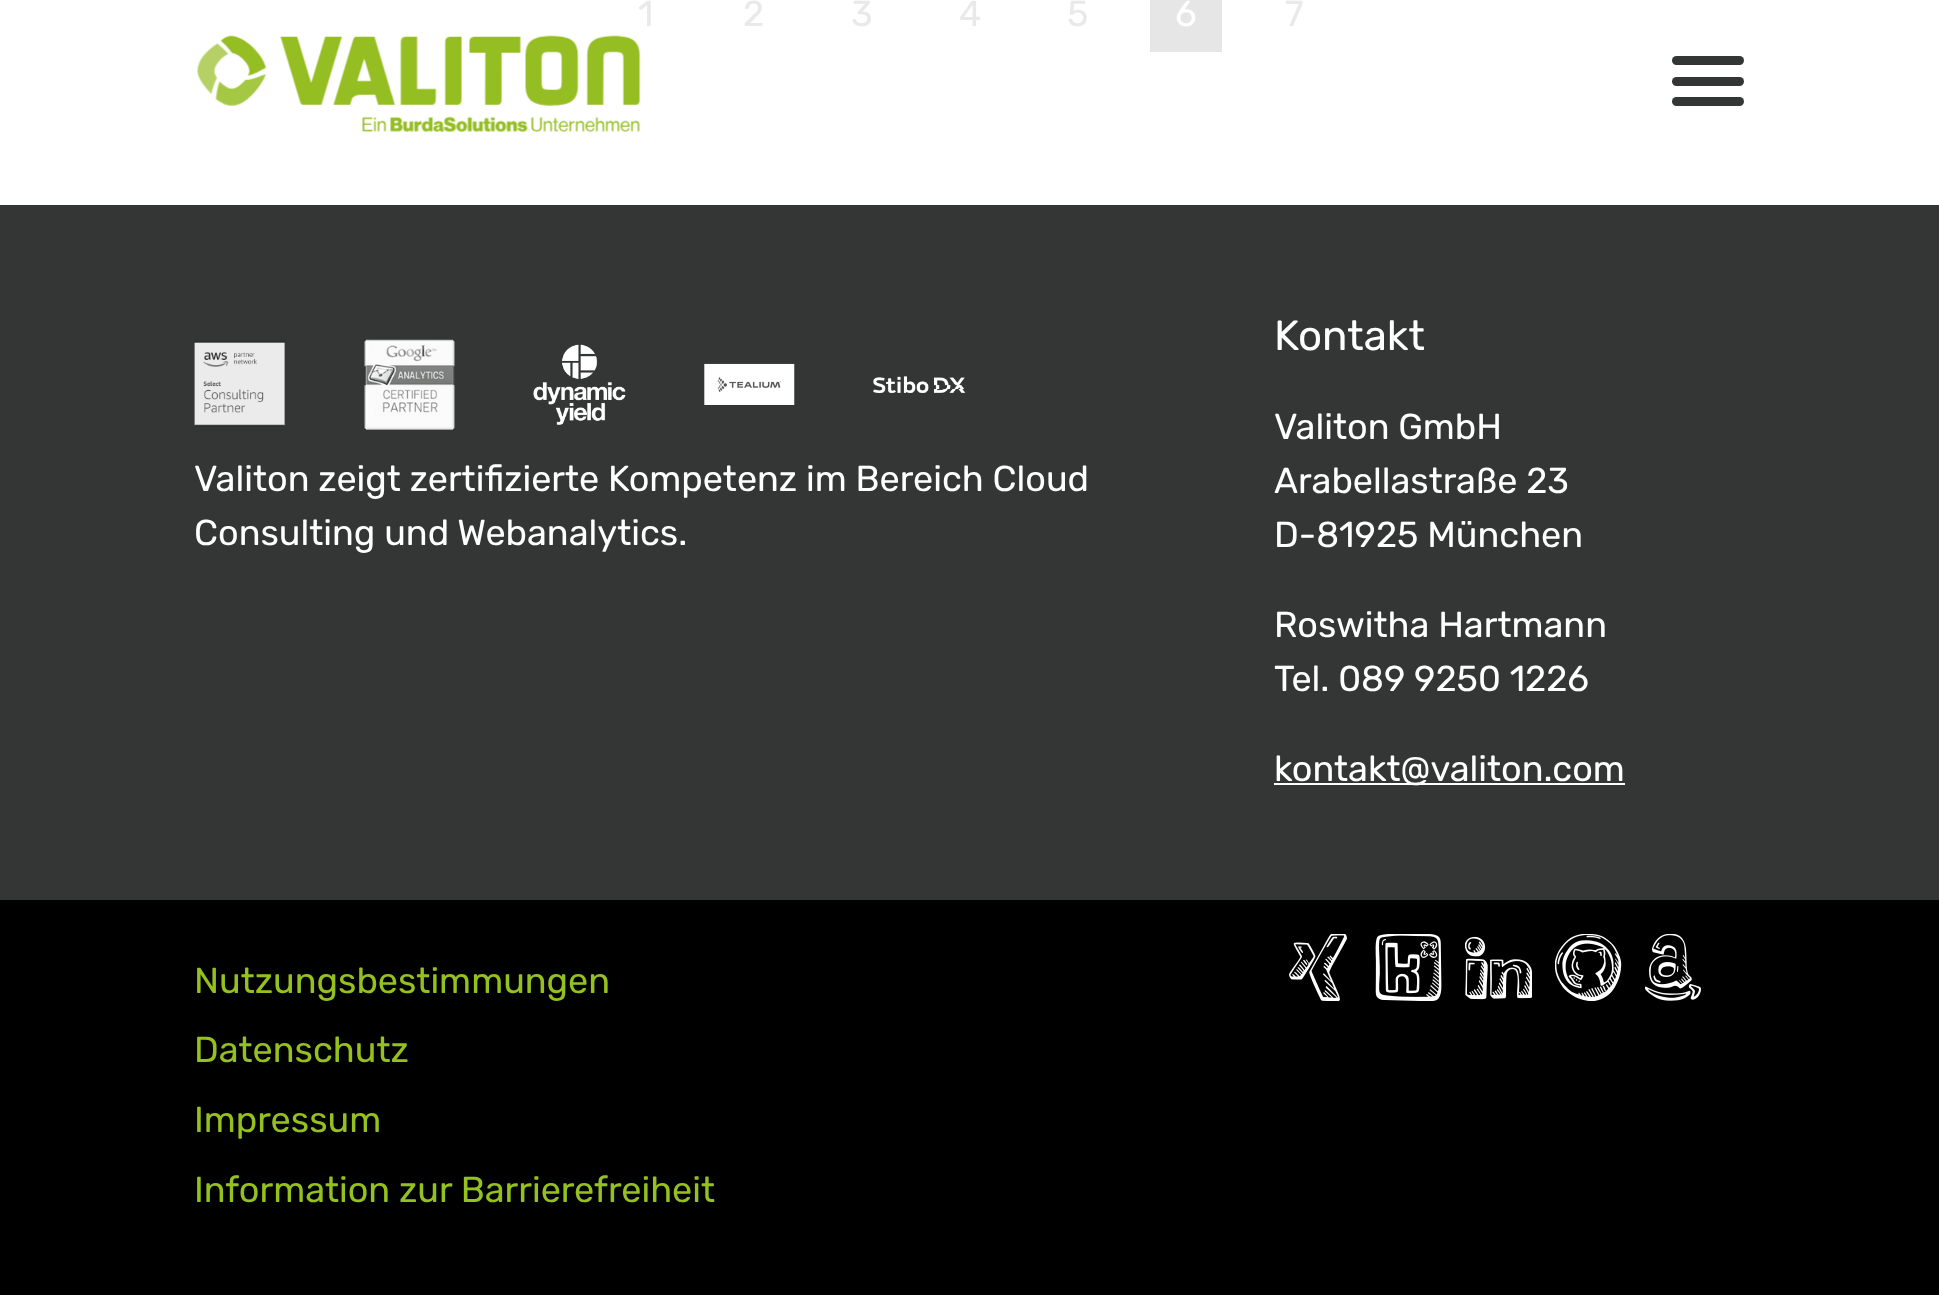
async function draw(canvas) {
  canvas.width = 1939;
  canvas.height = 1295;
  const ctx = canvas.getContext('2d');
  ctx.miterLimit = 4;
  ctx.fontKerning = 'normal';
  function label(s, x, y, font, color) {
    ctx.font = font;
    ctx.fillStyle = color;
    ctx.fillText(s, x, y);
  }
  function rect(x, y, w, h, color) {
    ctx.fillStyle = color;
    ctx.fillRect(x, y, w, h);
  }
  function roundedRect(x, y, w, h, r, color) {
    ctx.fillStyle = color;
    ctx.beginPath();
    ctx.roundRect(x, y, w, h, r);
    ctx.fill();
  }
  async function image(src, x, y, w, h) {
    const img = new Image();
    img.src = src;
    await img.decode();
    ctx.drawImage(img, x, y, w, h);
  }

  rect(0, 0, 1939, 1295, '#fff');
  label('1', 638, 26, '36px Rubik', '#e9e9e9');
  label('2', 743, 26, '36px Rubik', '#e9e9e9');
  label('3', 851, 26, '36px Rubik', '#e9e9e9');
  label('4', 959, 26, '36px Rubik', '#e9e9e9');
  label('5', 1067, 26, '36px Rubik', '#e9e9e9');
  rect(1150, 0, 72, 52, '#e6e6e6');
  label('6', 1175, 26, '36px Rubik', '#fff');
  label('7', 1285, 26, '36px Rubik', '#e9e9e9');
  await image('assets/img1.png', 197, 35, 444, 97);
  roundedRect(1672, 56, 72, 9, 4.5, '#333634');
  roundedRect(1672, 77, 72, 9, 4.5, '#333634');
  roundedRect(1672, 97, 72, 9, 4.5, '#333634');
  rect(0, 205, 1939, 695, '#333634');
  await image('assets/img2.png', 194, 340, 91, 87);
  await image('assets/img3.png', 364, 339, 91, 91);
  await image('assets/img4.png', 533, 344, 93, 81);
  await image('assets/img5.png', 704, 363, 91, 42);
  await image('assets/img6.png', 873, 376, 93, 17);
  label('Valiton zeigt zertifizierte Kompetenz im Bereich Cloud', 194, 491, '36px Rubik', '#fff');
  label('Consulting und Webanalytics.', 194, 545, '36px Rubik', '#fff');
  label('Kontakt', 1274, 350, '42px Rubik', '#fff');
  label('Valiton GmbH', 1274, 439, '36px Rubik', '#fff');
  label('Arabellastraße 23', 1274, 493, '36px Rubik', '#fff');
  label('D-81925 München', 1274, 547, '36px Rubik', '#fff');
  label('Roswitha Hartmann', 1274, 637, '36px Rubik', '#fff');
  label('Tel. 089 9250 1226', 1274, 691, '36px Rubik', '#fff');
  rect(1274, 783, 351, 2, '#fff');
  label('kontakt@valiton.com', 1274, 781, '36px Rubik', '#fff');
  rect(0, 900, 1939, 395, '#000');
  label('Nutzungsbestimmungen', 194, 993, '36px Rubik', '#95c11f');
  label('Datenschutz', 194, 1062, '36px Rubik', '#95c11f');
  label('Impressum', 194, 1132, '36px Rubik', '#95c11f');
  label('Information zur Barrierefreiheit', 194, 1202, '36px Rubik', '#95c11f');
  await image('assets/img7.png', 1289, 934, 58, 67);
  await image('assets/img8.png', 1375, 934, 67, 67);
  await image('assets/img9.png', 1465, 936, 67, 64);
  await image('assets/img10.png', 1555, 934, 67, 67);
  await image('assets/img11.png', 1645, 934, 56, 67);
}

draw(document.querySelector('canvas'));
